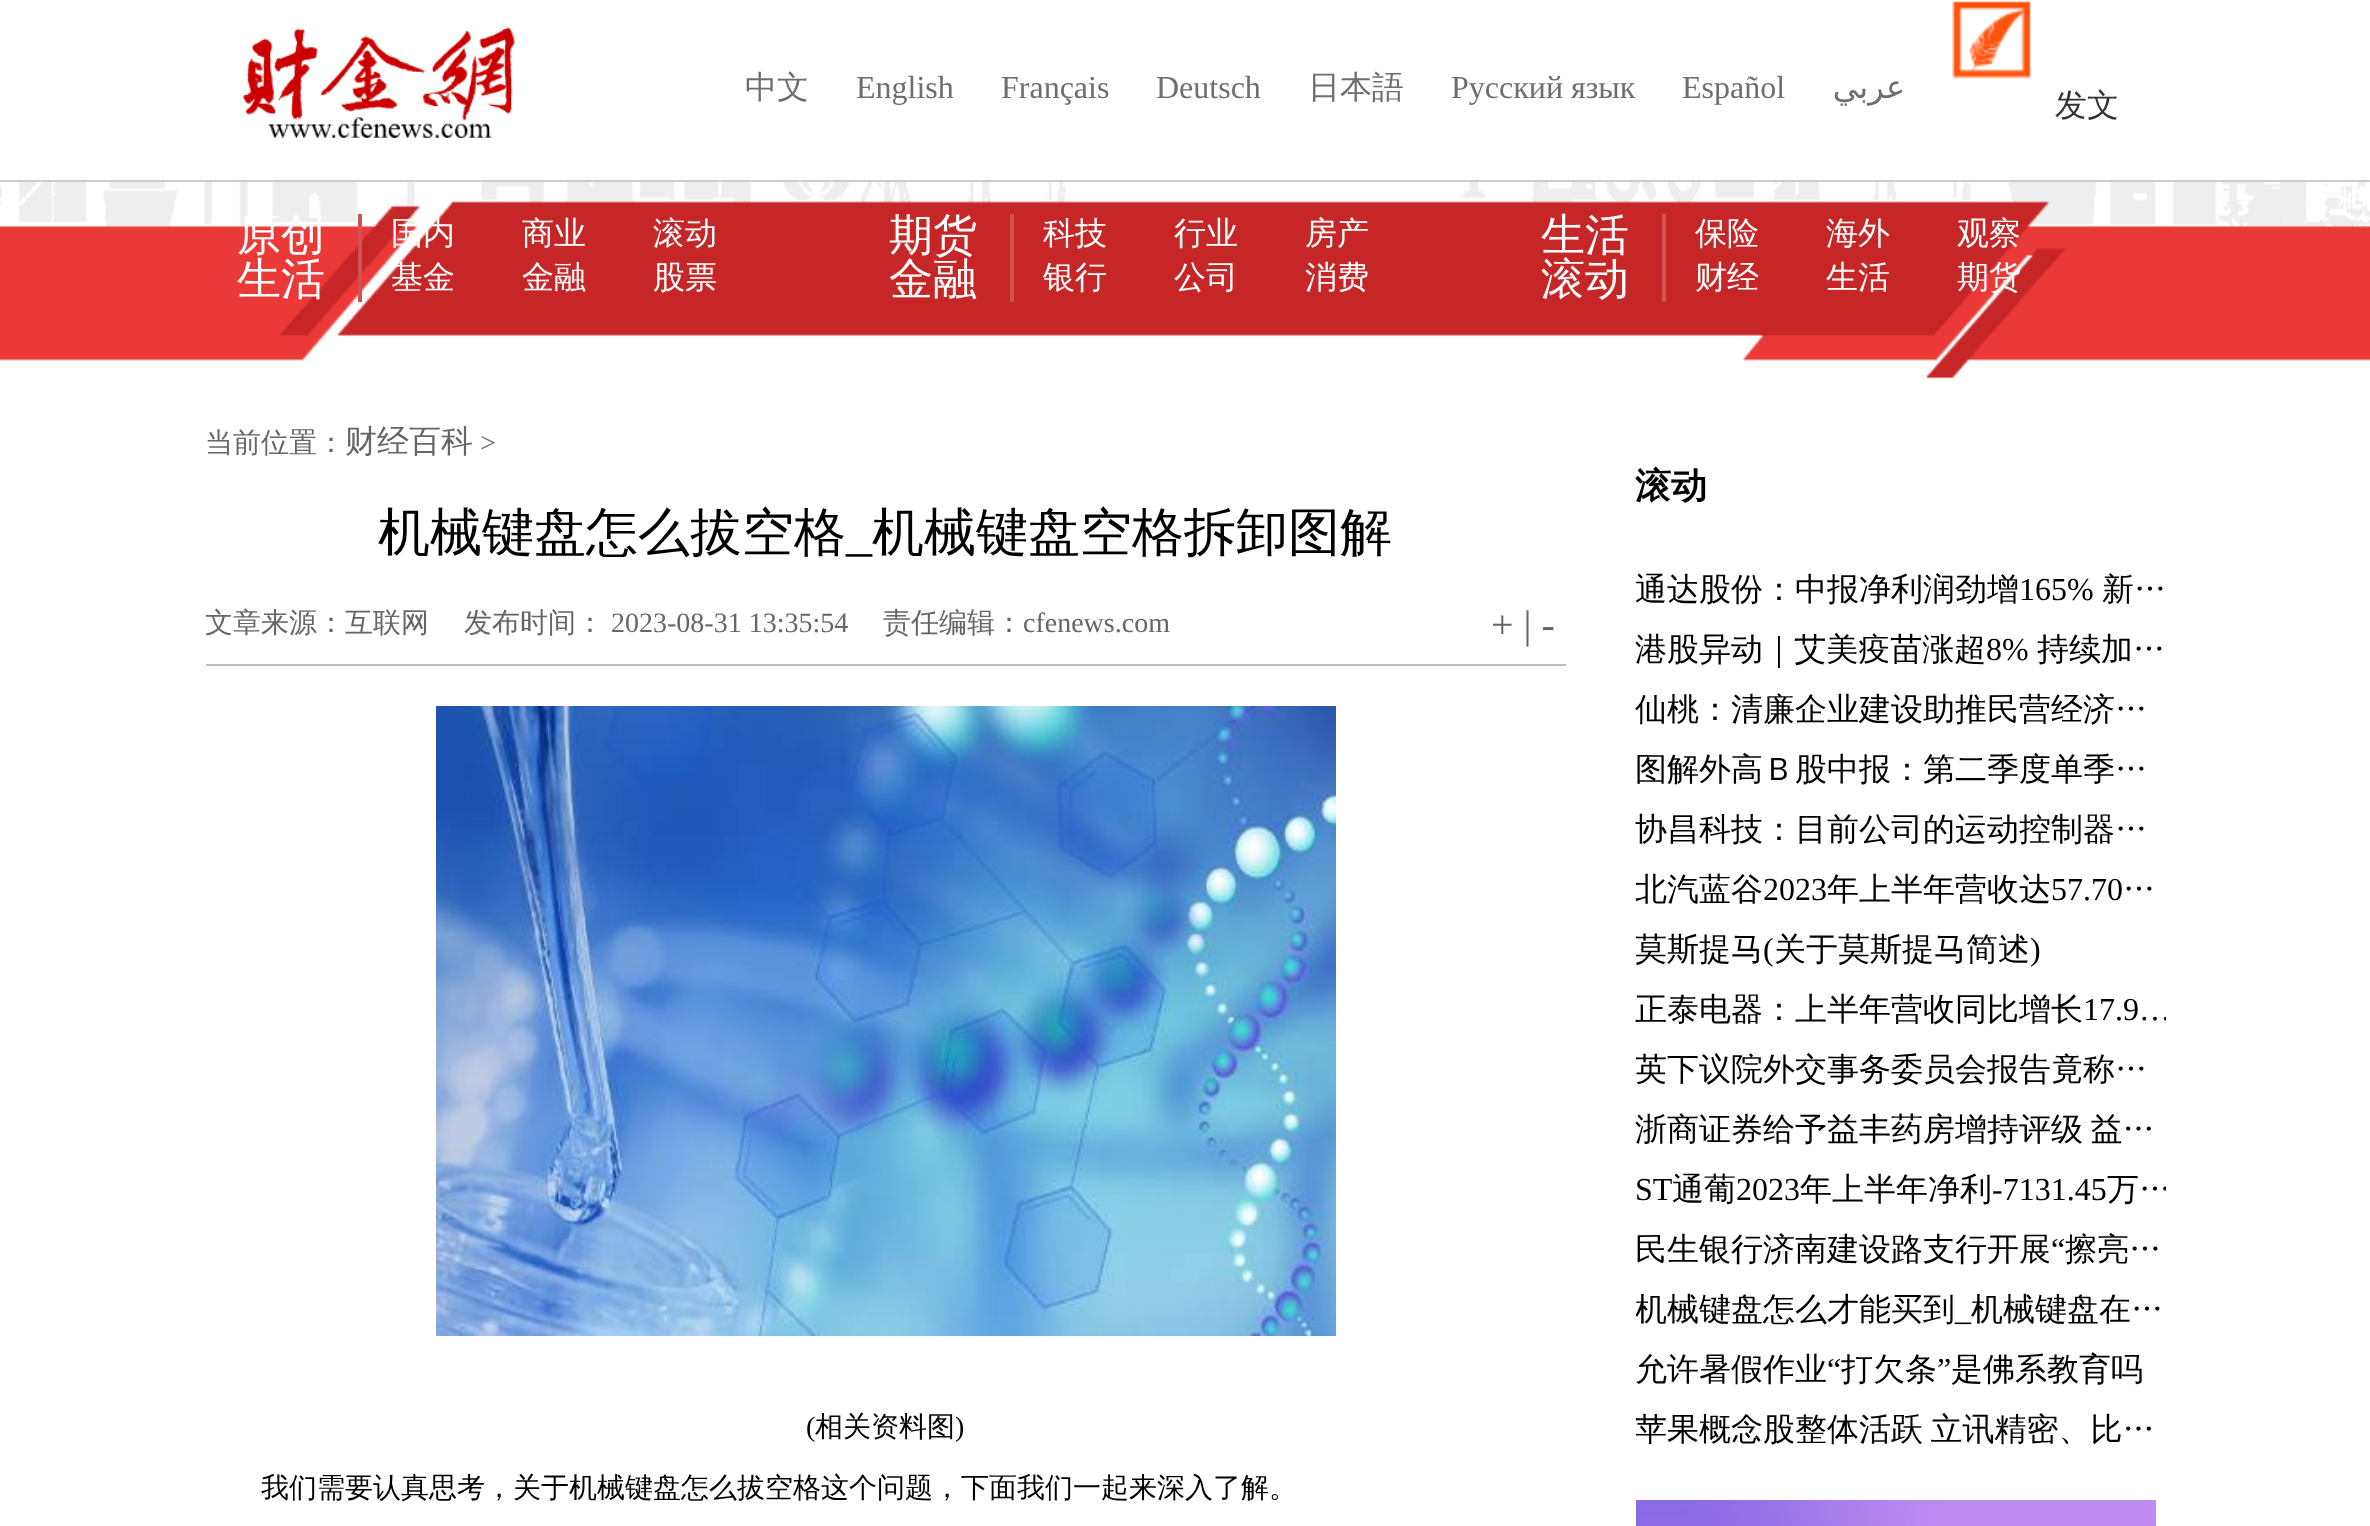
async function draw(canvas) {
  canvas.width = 2370;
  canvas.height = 1526;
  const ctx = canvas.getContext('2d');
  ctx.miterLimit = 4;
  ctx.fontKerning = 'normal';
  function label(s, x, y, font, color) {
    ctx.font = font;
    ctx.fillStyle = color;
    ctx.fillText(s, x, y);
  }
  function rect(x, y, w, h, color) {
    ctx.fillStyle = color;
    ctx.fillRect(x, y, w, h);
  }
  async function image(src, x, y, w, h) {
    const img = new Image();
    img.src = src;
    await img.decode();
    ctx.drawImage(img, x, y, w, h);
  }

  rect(0, 0, 2370, 1526, '#fff');
  rect(0, 180, 2370, 2, '#ccc');
  await image('assets/img1.png', 243, 27, 272, 111);
  label('中文', 745, 98, '500 32px WenQuanYi Zen Hei', '#6d6e71');
  label('English', 856, 98, '32px Liberation Serif', '#6d6e71');
  label('Français', 1001, 98, '32px Liberation Serif', '#6d6e71');
  label('Deutsch', 1156, 98, '32px Liberation Serif', '#6d6e71');
  label('日本語', 1308, 98, '500 32px WenQuanYi Zen Hei', '#6d6e71');
  label('Русский язык', 1451, 98, '32px Liberation Serif', '#6d6e71');
  label('Español', 1682, 98, '32px Liberation Serif', '#6d6e71');
  ctx.direction = 'rtl';
  label('عربي', 1905, 98, '32px DejaVu Sans', '#6d6e71');
  await image('assets/img2.png', 1952, 1, 79, 78);
  ctx.direction = 'ltr';
  label('发文', 2055, 116, '500 32px WenQuanYi Zen Hei', '#333');
  await image('assets/img3.png', 0, 182, 2370, 197);
  rect(358, 214, 4, 88, '#d15151');
  label('原创', 237, 250, '500 44px WenQuanYi Zen Hei', '#fff');
  label('生活', 237, 294, '500 44px WenQuanYi Zen Hei', '#fff');
  label('国内', 391, 244, '500 32px WenQuanYi Zen Hei', '#fff');
  label('商业', 522, 244, '500 32px WenQuanYi Zen Hei', '#fff');
  label('滚动', 653, 244, '500 32px WenQuanYi Zen Hei', '#fff');
  label('基金', 391, 288, '500 32px WenQuanYi Zen Hei', '#fff');
  label('金融', 522, 288, '500 32px WenQuanYi Zen Hei', '#fff');
  label('股票', 653, 288, '500 32px WenQuanYi Zen Hei', '#fff');
  rect(1010, 214, 4, 88, '#d15151');
  label('期货', 889, 250, '500 44px WenQuanYi Zen Hei', '#fff');
  label('金融', 889, 294, '500 44px WenQuanYi Zen Hei', '#fff');
  label('科技', 1043, 244, '500 32px WenQuanYi Zen Hei', '#fff');
  label('行业', 1174, 244, '500 32px WenQuanYi Zen Hei', '#fff');
  label('房产', 1305, 244, '500 32px WenQuanYi Zen Hei', '#fff');
  label('银行', 1043, 288, '500 32px WenQuanYi Zen Hei', '#fff');
  label('公司', 1174, 288, '500 32px WenQuanYi Zen Hei', '#fff');
  label('消费', 1305, 288, '500 32px WenQuanYi Zen Hei', '#fff');
  rect(1662, 214, 4, 88, '#d15151');
  label('生活', 1541, 250, '500 44px WenQuanYi Zen Hei', '#fff');
  label('滚动', 1541, 294, '500 44px WenQuanYi Zen Hei', '#fff');
  label('保险', 1695, 244, '500 32px WenQuanYi Zen Hei', '#fff');
  label('海外', 1826, 244, '500 32px WenQuanYi Zen Hei', '#fff');
  label('观察', 1957, 244, '500 32px WenQuanYi Zen Hei', '#fff');
  label('财经', 1695, 288, '500 32px WenQuanYi Zen Hei', '#fff');
  label('生活', 1826, 288, '500 32px WenQuanYi Zen Hei', '#fff');
  label('期货', 1957, 288, '500 32px WenQuanYi Zen Hei', '#fff');
  label('当前位置：', 205, 452, '500 28px WenQuanYi Zen Hei', '#666');
  label('财经百科', 345, 452, '500 32px WenQuanYi Zen Hei', '#666');
  label('>', 480, 452, '28px Liberation Serif', '#666');
  label('机械键盘怎么拔空格', 378, 550, '500 52px WenQuanYi Zen Hei', '#000');
  label('_', 846, 550, '52px Liberation Serif', '#000');
  label('机械键盘空格拆卸图解', 872, 550, '500 52px WenQuanYi Zen Hei', '#000');
  rect(206, 664, 1360, 2, '#bbbdbf');
  label('文章来源：互联网', 205, 632, '500 28px WenQuanYi Zen Hei', '#666');
  label('发布时间：', 464, 632, '500 28px WenQuanYi Zen Hei', '#666');
  label('2023-08-31 13:35:54', 611, 632, '28px Liberation Serif', '#666');
  label('责任编辑：', 883, 632, '500 28px WenQuanYi Zen Hei', '#666');
  label('cfenews.com', 1023, 632, '28px Liberation Serif', '#666');
  label('+ | -', 1491, 638, '40px Liberation Serif', '#666');
  await image('assets/img4.png', 436, 706, 900, 630);
  label('(', 806, 1436, '28px Liberation Serif', '#000');
  label('相关资料图', 815, 1436, '500 28px WenQuanYi Zen Hei', '#000');
  label(')', 955, 1436, '28px Liberation Serif', '#000');
  label('我们需要认真思考，关于机械键盘怎么拔空格这个问题，下面我们一起来深入了解。', 261, 1497, '500 28px WenQuanYi Zen Hei', '#000');
  label('滚动', 1635, 498, 'bold 36px WenQuanYi Zen Hei', '#000');
  label('通达股份：中报净利润劲增', 1635, 600, '500 32px WenQuanYi Zen Hei', '#000');
  label('165%', 2019, 600, '32px Liberation Serif', '#000');
  label('新…', 2102, 600, '500 32px WenQuanYi Zen Hei', '#000');
  label('港股异动｜艾美疫苗涨超', 1635, 660, '500 32px WenQuanYi Zen Hei', '#000');
  label('8%', 1986, 660, '32px Liberation Serif', '#000');
  label('持续加…', 2037, 660, '500 32px WenQuanYi Zen Hei', '#000');
  label('仙桃：清廉企业建设助推民营经济…', 1635, 720, '500 32px WenQuanYi Zen Hei', '#000');
  label('图解外高Ｂ股中报：第二季度单季…', 1635, 780, '500 32px WenQuanYi Zen Hei', '#000');
  label('协昌科技：目前公司的运动控制器…', 1635, 840, '500 32px WenQuanYi Zen Hei', '#000');
  label('北汽蓝谷', 1635, 900, '500 32px WenQuanYi Zen Hei', '#000');
  label('2023', 1763, 900, '32px Liberation Serif', '#000');
  label('年上半年营收达', 1827, 900, '500 32px WenQuanYi Zen Hei', '#000');
  label('57.70', 2051, 900, '32px Liberation Serif', '#000');
  label('…', 2123, 900, '500 32px WenQuanYi Zen Hei', '#000');
  ctx.save();
  ctx.beginPath();
  ctx.rect(1636, 920, 530, 60);
  ctx.clip();
  label('莫斯提马', 1635, 960, '500 32px WenQuanYi Zen Hei', '#000');
  ctx.restore();
  label('(', 1763, 960, '32px Liberation Serif', '#000');
  label('关于莫斯提马简述', 1774, 960, '500 32px WenQuanYi Zen Hei', '#000');
  label(')', 2030, 960, '32px Liberation Serif', '#000');
  label('正泰电器：上半年营收同比增长', 1635, 1020, '500 32px WenQuanYi Zen Hei', '#000');
  ctx.save();
  ctx.beginPath();
  ctx.rect(1636, 980, 530, 60);
  ctx.clip();
  label('17.9…', 2083, 1020, '32px Liberation Serif', '#000');
  ctx.restore();
  ctx.save();
  ctx.beginPath();
  ctx.rect(1636, 1040, 530, 60);
  ctx.clip();
  label('英下议院外交事务委员会报告竟称…', 1635, 1080, '500 32px WenQuanYi Zen Hei', '#000');
  ctx.restore();
  ctx.wordSpacing = '-2px';
  label('浙商证券给予益丰药房增持评级 益…', 1635, 1140, '500 32px WenQuanYi Zen Hei', '#000');
  ctx.wordSpacing = '0px';
  label('ST', 1635, 1200, '32px Liberation Serif', '#000');
  label('通葡', 1672, 1200, '500 32px WenQuanYi Zen Hei', '#000');
  label('2023', 1736, 1200, '32px Liberation Serif', '#000');
  label('年上半年净利', 1800, 1200, '500 32px WenQuanYi Zen Hei', '#000');
  label('-7131.45', 1992, 1200, '32px Liberation Serif', '#000');
  ctx.save();
  ctx.beginPath();
  ctx.rect(1636, 1160, 530, 60);
  ctx.clip();
  ctx.wordSpacing = '-2px';
  label('万…', 2107, 1200, '500 32px WenQuanYi Zen Hei', '#000');
  ctx.restore();
  label('民生银行济南建设路支行开展', 1635, 1260, '500 32px WenQuanYi Zen Hei', '#000');
  label('“', 2051, 1260, '32px Liberation Serif', '#000');
  label('擦亮…', 2065, 1260, '500 32px WenQuanYi Zen Hei', '#000');
  ctx.save();
  ctx.beginPath();
  ctx.rect(1636, 1280, 530, 60);
  ctx.clip();
  label('机械键盘怎么才能买到', 1635, 1320, '500 32px WenQuanYi Zen Hei', '#000');
  ctx.restore();
  label('_', 1955, 1320, '32px Liberation Serif', '#000');
  label('机械键盘在…', 1971, 1320, '500 32px WenQuanYi Zen Hei', '#000');
  label('允许暑假作业', 1635, 1380, '500 32px WenQuanYi Zen Hei', '#000');
  label('“', 1827, 1380, '32px Liberation Serif', '#000');
  label('打欠条', 1841, 1380, '500 32px WenQuanYi Zen Hei', '#000');
  label('”', 1937, 1380, '32px Liberation Serif', '#000');
  label('是佛系教育吗', 1951, 1380, '500 32px WenQuanYi Zen Hei', '#000');
  ctx.save();
  ctx.beginPath();
  ctx.rect(1636, 1400, 530, 60);
  ctx.clip();
  ctx.wordSpacing = '-2px';
  label('苹果概念股整体活跃 立讯精密、比…', 1635, 1440, '500 32px WenQuanYi Zen Hei', '#000');
  ctx.restore();
  await image('assets/img5.png', 1636, 1500, 520, 26);
}

draw(document.querySelector('canvas'));
